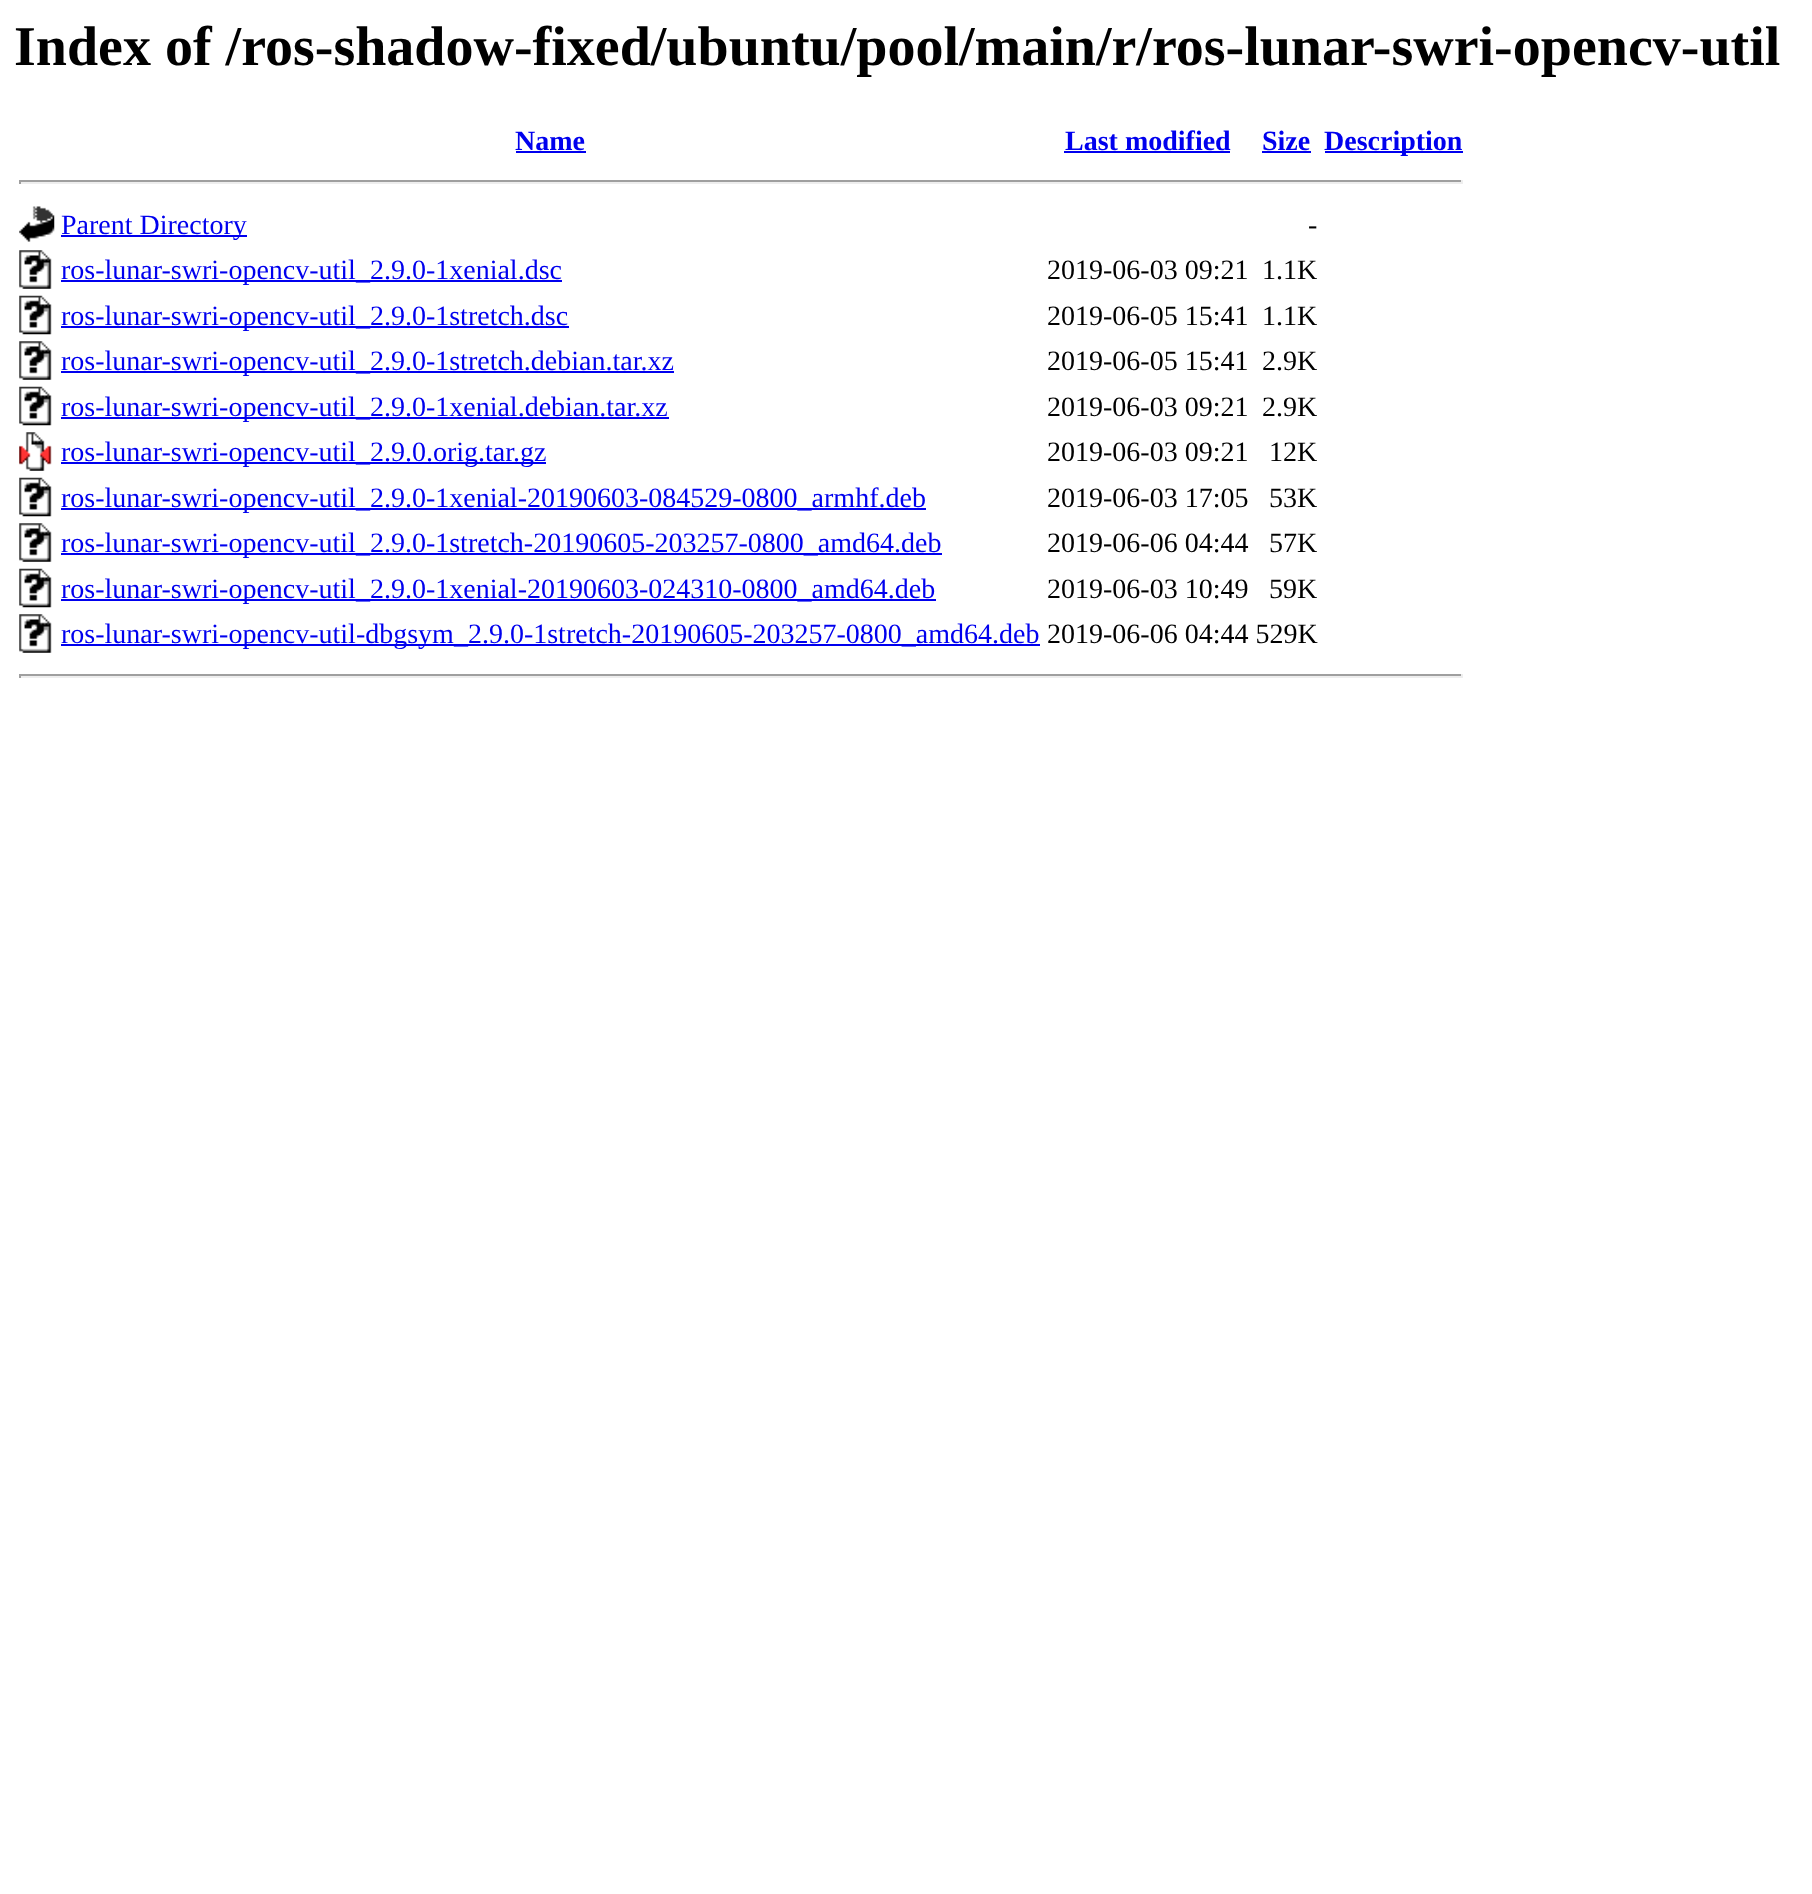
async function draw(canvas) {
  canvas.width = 1812;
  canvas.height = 1894;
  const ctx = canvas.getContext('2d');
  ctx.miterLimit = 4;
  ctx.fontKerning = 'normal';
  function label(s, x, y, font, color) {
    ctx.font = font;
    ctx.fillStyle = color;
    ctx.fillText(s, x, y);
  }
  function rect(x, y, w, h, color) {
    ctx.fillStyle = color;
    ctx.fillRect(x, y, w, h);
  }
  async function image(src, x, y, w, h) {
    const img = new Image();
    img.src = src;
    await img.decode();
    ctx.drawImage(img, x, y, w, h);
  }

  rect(0, 0, 1812, 1894, '#fff');
  label('Index of /ros-shadow-fixed/ubuntu/pool/main/r/ros-lunar-swri-opencv-util', 14, 65, 'bold 56px Liberation Serif', '#000');
  label('Name', 515, 150, 'bold 28px Liberation Serif', '#00e');
  rect(516, 151, 70, 2, '#00e');
  label('Last modified', 1065, 150, 'bold 28px Liberation Serif', '#00e');
  rect(1064, 151, 166, 2, '#00e');
  label('Size', 1262, 150, 'bold 28px Liberation Serif', '#00e');
  rect(1262, 151, 49, 2, '#00e');
  rect(1325, 151, 138, 2, '#00e');
  label('Description', 1324, 150, 'bold 28px Liberation Serif', '#00e');
  rect(19, 180, 1444, 2, '#9f9f9f');
  rect(1461, 180, 2, 4, '#eee');
  rect(19, 182, 1444, 2, '#eee');
  rect(19, 180, 2, 4, '#9f9f9f');
  await image('assets/img1.png', 19, 206, 36, 36);
  rect(61, 235, 186, 2, '#00e');
  label('Parent Directory', 61, 234, '28px Liberation Serif', '#00e');
  label('-', 1308, 234, '28px Liberation Serif', '#000');
  await image('assets/img2.png', 19, 250, 33, 39);
  rect(61, 280, 501, 2, '#00e');
  label('ros-lunar-swri-opencv-util_2.9.0-1xenial.dsc', 61, 279, '28px Liberation Serif', '#00e');
  label('2019-06-03 09:21', 1047, 279, '28px Liberation Serif', '#000');
  label('1.1K', 1262, 279, '28px Liberation Serif', '#000');
  await image('assets/img3.png', 19, 295, 33, 40);
  rect(61, 326, 508, 2, '#00e');
  label('ros-lunar-swri-opencv-util_2.9.0-1stretch.dsc', 61, 325, '28px Liberation Serif', '#00e');
  label('2019-06-05 15:41', 1047, 325, '28px Liberation Serif', '#000');
  label('1.1K', 1262, 325, '28px Liberation Serif', '#000');
  await image('assets/img2.png', 19, 341, 33, 39);
  rect(61, 371, 613, 2, '#00e');
  label('ros-lunar-swri-opencv-util_2.9.0-1stretch.debian.tar.xz', 61, 370, '28px Liberation Serif', '#00e');
  label('2019-06-05 15:41', 1047, 370, '28px Liberation Serif', '#000');
  label('2.9K', 1262, 370, '28px Liberation Serif', '#000');
  await image('assets/img3.png', 19, 386, 33, 40);
  rect(61, 417, 608, 2, '#00e');
  label('ros-lunar-swri-opencv-util_2.9.0-1xenial.debian.tar.xz', 61, 416, '28px Liberation Serif', '#00e');
  label('2019-06-03 09:21', 1047, 416, '28px Liberation Serif', '#000');
  label('2.9K', 1262, 416, '28px Liberation Serif', '#000');
  await image('assets/img4.png', 19, 432, 33, 39);
  rect(61, 462, 485, 2, '#00e');
  label('ros-lunar-swri-opencv-util_2.9.0.orig.tar.gz', 61, 461, '28px Liberation Serif', '#00e');
  label('2019-06-03 09:21', 1047, 461, '28px Liberation Serif', '#000');
  label('12K', 1269, 461, '28px Liberation Serif', '#000');
  await image('assets/img3.png', 19, 477, 33, 40);
  rect(61, 508, 865, 2, '#00e');
  label('ros-lunar-swri-opencv-util_2.9.0-1xenial-20190603-084529-0800_armhf.deb', 61, 507, '28px Liberation Serif', '#00e');
  label('2019-06-03 17:05', 1047, 507, '28px Liberation Serif', '#000');
  label('53K', 1269, 507, '28px Liberation Serif', '#000');
  await image('assets/img2.png', 19, 523, 33, 39);
  rect(61, 553, 881, 2, '#00e');
  label('ros-lunar-swri-opencv-util_2.9.0-1stretch-20190605-203257-0800_amd64.deb', 61, 552, '28px Liberation Serif', '#00e');
  label('2019-06-06 04:44', 1047, 552, '28px Liberation Serif', '#000');
  label('57K', 1269, 552, '28px Liberation Serif', '#000');
  await image('assets/img3.png', 19, 568, 33, 40);
  rect(61, 599, 875, 2, '#00e');
  label('ros-lunar-swri-opencv-util_2.9.0-1xenial-20190603-024310-0800_amd64.deb', 61, 598, '28px Liberation Serif', '#00e');
  label('2019-06-03 10:49', 1047, 598, '28px Liberation Serif', '#000');
  label('59K', 1269, 598, '28px Liberation Serif', '#000');
  await image('assets/img2.png', 19, 614, 33, 39);
  rect(61, 644, 979, 2, '#00e');
  label('ros-lunar-swri-opencv-util-dbgsym_2.9.0-1stretch-20190605-203257-0800_amd64.deb', 61, 643, '28px Liberation Serif', '#00e');
  label('2019-06-06 04:44 529K', 1047, 643, '28px Liberation Serif', '#000');
  rect(19, 674, 1444, 2, '#9f9f9f');
  rect(1461, 674, 2, 4, '#eee');
  rect(19, 676, 1444, 2, '#eee');
  rect(19, 674, 2, 4, '#9f9f9f');
}

draw(document.querySelector('canvas'));
